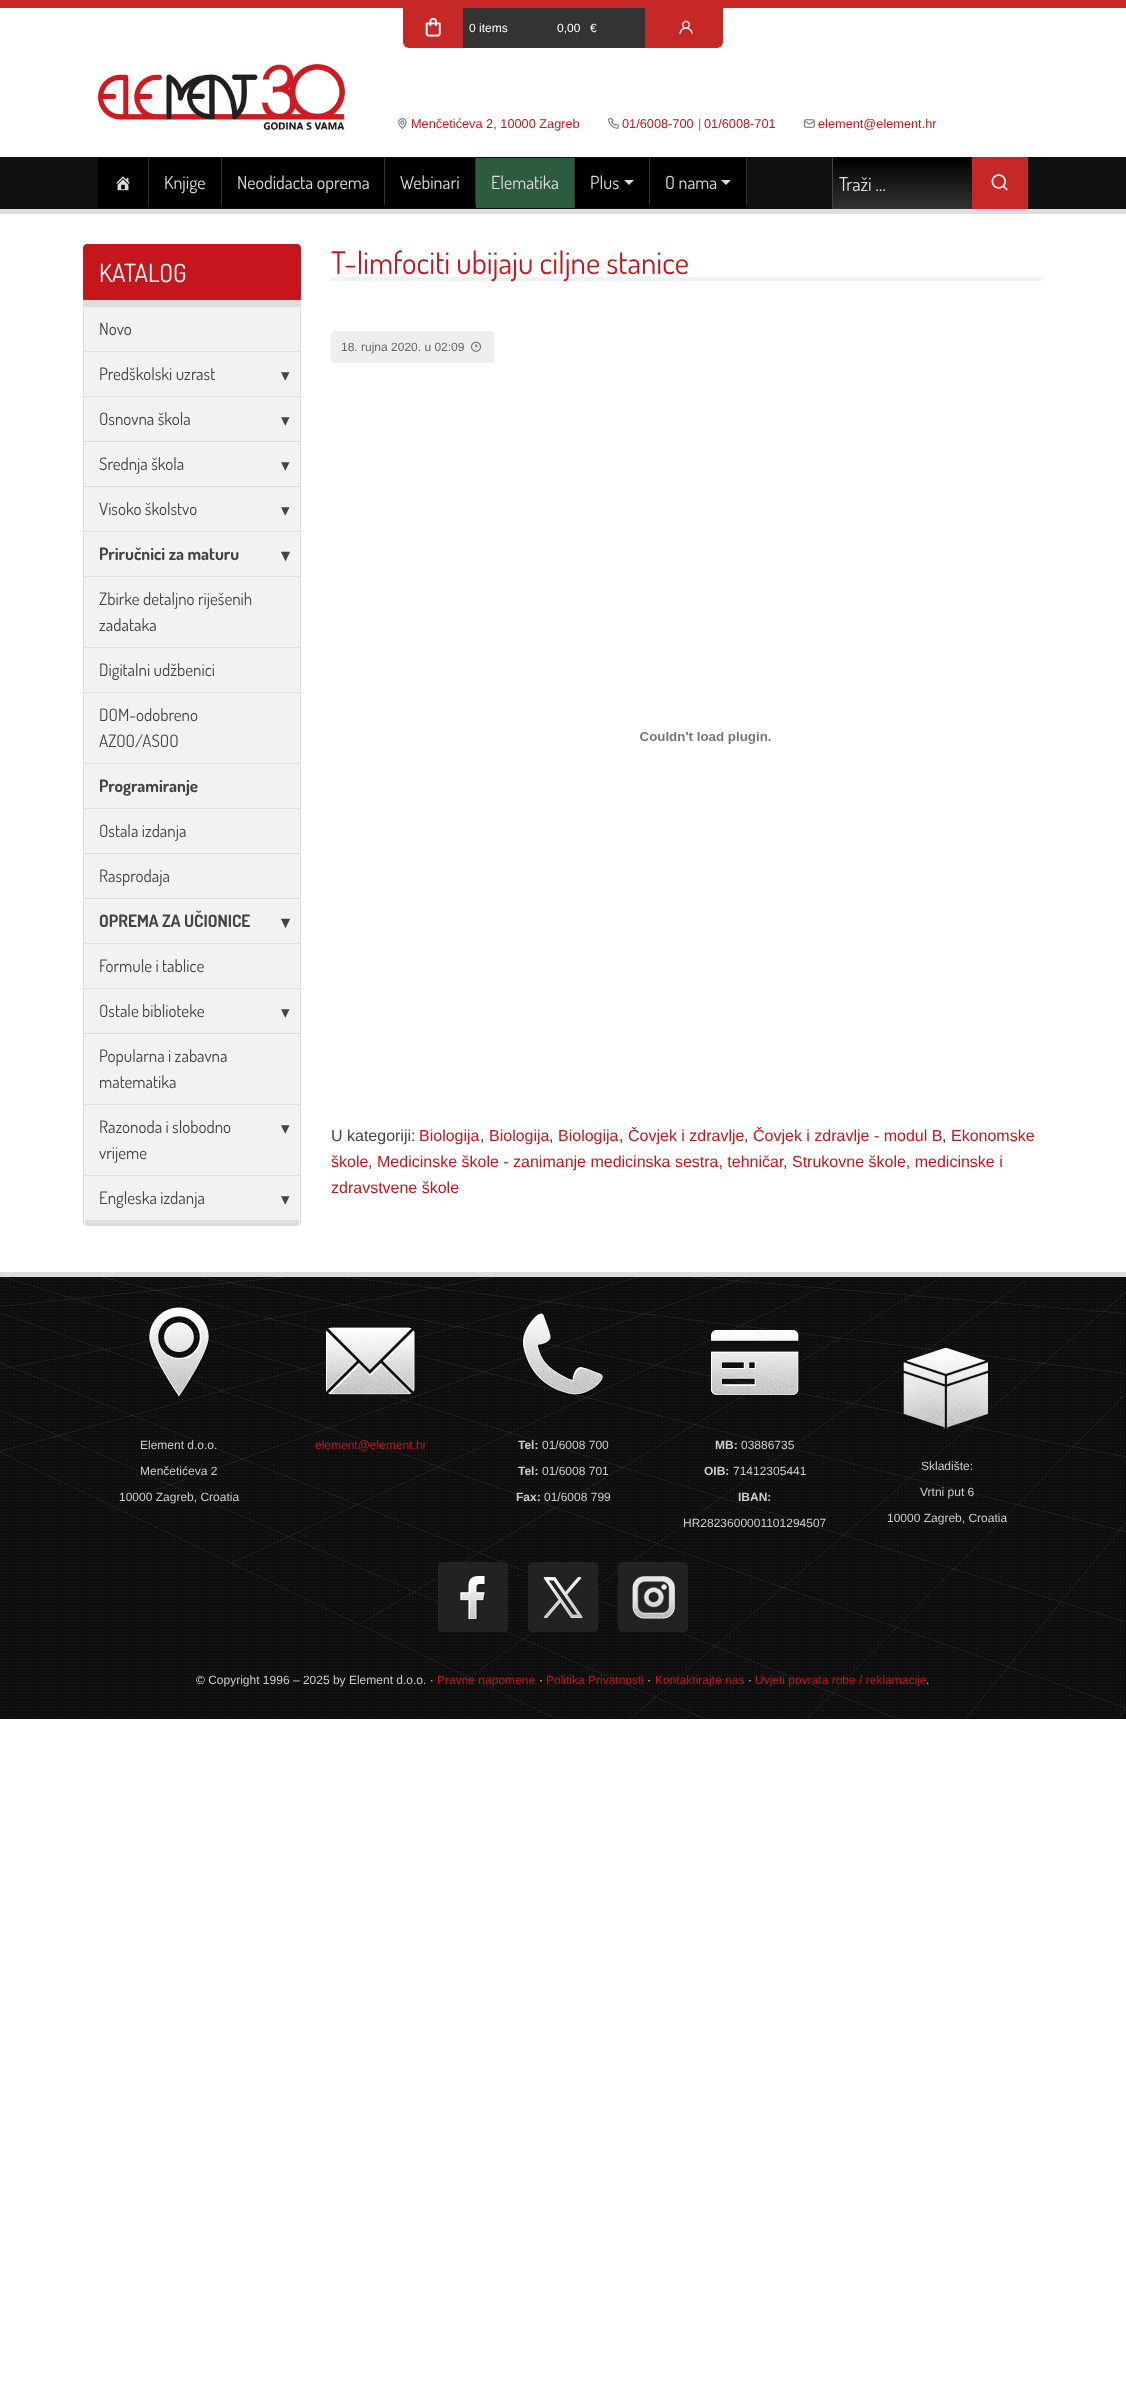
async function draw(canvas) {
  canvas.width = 1126;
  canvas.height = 2387;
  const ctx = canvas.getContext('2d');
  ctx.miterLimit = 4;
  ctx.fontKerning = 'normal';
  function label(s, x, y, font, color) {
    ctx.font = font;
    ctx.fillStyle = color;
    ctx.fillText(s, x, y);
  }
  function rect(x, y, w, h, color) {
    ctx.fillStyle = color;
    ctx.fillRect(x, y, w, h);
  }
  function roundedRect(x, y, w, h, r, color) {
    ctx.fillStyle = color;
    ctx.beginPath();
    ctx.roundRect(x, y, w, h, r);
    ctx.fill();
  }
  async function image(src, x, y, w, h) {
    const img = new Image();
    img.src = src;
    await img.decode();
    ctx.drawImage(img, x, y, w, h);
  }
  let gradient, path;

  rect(0, 0, 1126, 2387, '#fff');
  rect(0, 0, 1126, 8, '#c62828');
  ctx.beginPath();
  ctx.roundRect(403, 8, 320, 40, [0, 0, 6, 6]);
  ctx.fill();
  await image('assets/img1.png', 425, 17, 16, 20);
  rect(463, 8, 182, 40, '#333');
  label('0 items', 469, 32, '12px Liberation Sans', '#fff');
  label('0,00', 557, 32, '12px Liberation Sans', '#fff');
  label('€', 590, 32, '12px Liberation Sans', '#fff');
  await image('assets/img2.png', 679, 20, 14, 14);
  await image('assets/img3.png', 98, 64, 247, 66);
  await image('assets/img4.png', 398, 118, 9, 11);
  label('Menčetićeva 2, 10000 Zagreb', 411, 128, '12.75px Liberation Sans', '#c4161c');
  await image('assets/img5.png', 608, 118, 11, 11);
  label('01/6008-700', 622, 128, '12.75px Liberation Sans', '#c4161c');
  label('|', 698, 128, '12.75px Liberation Sans', '#737373');
  label('01/6008-701', 704, 128, '12.75px Liberation Sans', '#c4161c');
  await image('assets/img6.png', 804, 119, 11, 9);
  label('element@element.hr', 818, 128, '12.75px Liberation Sans', '#c4161c');
  rect(0, 157, 1126, 52, '#111');
  rect(0, 209, 1126, 5, '#ddd');
  rect(98, 158, 378, 50, '#000');
  ctx.fillStyle = '#333';
  path = new Path2D('M149 158V208L148 203V158Z');
  ctx.fill(path);
  await image('assets/img7.png', 116, 176, 14, 15);
  path = new Path2D('M222 158V208L221 203V158Z');
  ctx.fill(path);
  label('Knjige', 164, 189, '18px Dosis', '#ddd');
  ctx.fillStyle = '#333';
  path = new Path2D('M385 158V208L384 203V158Z');
  ctx.fill(path);
  label('Neodidacta oprema', 237, 189, '18px Dosis', '#ddd');
  ctx.fillStyle = '#333';
  path = new Path2D('M476 158V208L475 203V158Z');
  ctx.fill(path);
  label('Webinari', 400, 189, '18px Dosis', '#ddd');
  rect(476, 158, 99, 50, '#2d5b3e');
  ctx.fillStyle = '#333';
  path = new Path2D('M575 158V208L574 203V158Z');
  ctx.fill(path);
  label('Elematika', 491, 189, '18px Dosis', '#ddd');
  rect(575, 158, 172, 50, '#000');
  ctx.fillStyle = '#333';
  path = new Path2D('M650 158V208L649 203V158Z');
  ctx.fill(path);
  label('Plus', 590, 189, '18px Dosis', '#ddd');
  path = new Path2D('M624 180H634L629 185Z');
  ctx.fill(path);
  ctx.fillStyle = '#333';
  path = new Path2D('M747 158V208L746 203V158Z');
  ctx.fill(path);
  label('O nama', 665, 189, '18px Dosis', '#ddd');
  path = new Path2D('M721 180H731L726 185Z');
  ctx.fill(path);
  gradient = ctx.createLinearGradient(903, 158, 903, 209);
  gradient.addColorStop(0, '#000');
  gradient.addColorStop(1, '#333');
  ctx.fillStyle = gradient;
  ctx.fillRect(833, 158, 139, 51);
  rect(832, 158, 1, 51, '#444');
  label('Traži …', 839, 191, '19px Dosis', '#ddd');
  rect(972, 157, 56, 52, '#c62828');
  await image('assets/img8.png', 991, 174, 17, 17);
  rect(83, 300, 218, 5, '#dedede');
  ctx.fillStyle = '#c4161c';
  ctx.beginPath();
  ctx.roundRect(83.5, 244.5, 217, 55, [3.5, 3.5, 0, 0]);
  ctx.fill();
  ctx.strokeStyle = '#c4161c';
  ctx.stroke();
  label('KATALOG', 99, 282, '25px Dosis', '#fff');
  ctx.beginPath();
  ctx.roundRect(83.5, 305.5, 217, 920, [0, 0, 3.5, 3.5]);
  ctx.strokeStyle = '#ddd';
  ctx.stroke();
  rect(85, 1220, 214, 5, '#ddd');
  rect(84, 307, 216, 44, '#f2f2f2');
  rect(84, 306, 216, 1, '#ddd');
  label('Novo', 99, 335, '17px Dosis', '#444');
  rect(84, 352, 216, 44, '#f2f2f2');
  rect(84, 351, 216, 1, '#ddd');
  label('Predškolski uzrast', 99, 380, '17px Dosis', '#444');
  label('▾', 281, 381, '17px DejaVu Sans', '#444');
  rect(84, 397, 216, 44, '#f2f2f2');
  rect(84, 396, 216, 1, '#ddd');
  label('Osnovna škola', 99, 425, '17px Dosis', '#444');
  label('▾', 281, 426, '17px DejaVu Sans', '#444');
  rect(84, 442, 216, 44, '#f2f2f2');
  rect(84, 441, 216, 1, '#ddd');
  label('Srednja škola', 99, 470, '17px Dosis', '#444');
  label('▾', 281, 471, '17px DejaVu Sans', '#444');
  rect(84, 487, 216, 44, '#f2f2f2');
  rect(84, 486, 216, 1, '#ddd');
  label('Visoko školstvo', 99, 515, '17px Dosis', '#444');
  label('▾', 281, 516, '17px DejaVu Sans', '#444');
  rect(84, 532, 216, 44, '#f2f2f2');
  rect(84, 531, 216, 1, '#ddd');
  label('Priručnici za maturu', 99, 560, 'bold 17px Dosis', '#444');
  label('▾', 281, 561, 'bold 17px DejaVu Sans', '#444');
  rect(84, 577, 216, 70, '#f2f2f2');
  rect(84, 576, 216, 1, '#ddd');
  label('Zbirke detaljno riješenih', 99, 605, '17px Dosis', '#444');
  label('zadataka', 99, 631, '17px Dosis', '#444');
  rect(84, 648, 216, 44, '#f2f2f2');
  rect(84, 647, 216, 1, '#ddd');
  label('Digitalni udžbenici', 99, 676, '17px Dosis', '#444');
  rect(84, 693, 216, 70, '#f2f2f2');
  rect(84, 692, 216, 1, '#ddd');
  label('DOM-odobreno', 99, 721, '17px Dosis', '#444');
  label('AZOO/ASOO', 99, 747, '17px Dosis', '#444');
  rect(84, 764, 216, 44, '#f2f2f2');
  rect(84, 763, 216, 1, '#ddd');
  label('Programiranje', 99, 792, 'bold 17px Dosis', '#444');
  rect(84, 809, 216, 44, '#f2f2f2');
  rect(84, 808, 216, 1, '#ddd');
  label('Ostala izdanja', 99, 837, '17px Dosis', '#444');
  rect(84, 854, 216, 44, '#f2f2f2');
  rect(84, 853, 216, 1, '#ddd');
  label('Rasprodaja', 99, 882, '17px Dosis', '#444');
  rect(84, 899, 216, 44, '#f2f2f2');
  rect(84, 898, 216, 1, '#ddd');
  label('OPREMA ZA UČIONICE', 99, 927, 'bold 17px Dosis', '#444');
  label('▾', 281, 928, 'bold 17px DejaVu Sans', '#444');
  rect(84, 944, 216, 44, '#f2f2f2');
  rect(84, 943, 216, 1, '#ddd');
  label('Formule i tablice', 99, 972, '17px Dosis', '#444');
  rect(84, 989, 216, 44, '#f2f2f2');
  rect(84, 988, 216, 1, '#ddd');
  label('Ostale biblioteke', 99, 1017, '17px Dosis', '#444');
  label('▾', 281, 1018, '17px DejaVu Sans', '#444');
  rect(84, 1034, 216, 70, '#f2f2f2');
  rect(84, 1033, 216, 1, '#ddd');
  label('Popularna i zabavna', 99, 1062, '17px Dosis', '#444');
  label('matematika', 99, 1088, '17px Dosis', '#444');
  rect(84, 1105, 216, 70, '#f2f2f2');
  rect(84, 1104, 216, 1, '#ddd');
  label('Razonoda i slobodno', 99, 1133, '17px Dosis', '#444');
  label('▾', 281, 1134, '17px DejaVu Sans', '#444');
  label('vrijeme', 99, 1159, '17px Dosis', '#444');
  rect(84, 1176, 216, 44, '#f2f2f2');
  rect(84, 1175, 216, 1, '#ddd');
  label('Engleska izdanja', 99, 1204, '17px Dosis', '#444');
  label('▾', 281, 1205, '17px DejaVu Sans', '#444');
  rect(331, 277, 712, 4, '#f1f1f1');
  label('T-limfociti ubijaju ciljne stanice', 331, 274, '31px Dosis', '#c4161c');
  roundedRect(331, 331, 163, 32, 3, '#eee');
  label('18. rujna 2020. u 02:09', 341, 351, '12px Liberation Sans', '#666');
  await image('assets/img9.png', 471, 341, 10, 11);
  await image('assets/img10.png', 640, 732, 131, 12);
  label('U kategoriji:', 331, 1141, '16px Liberation Sans', '#444');
  label('Biologija', 419, 1141, '16px Liberation Sans', '#c4161c');
  label(',', 480, 1141, '16px Liberation Sans', '#444');
  label('Biologija', 489, 1141, '16px Liberation Sans', '#c4161c');
  label(',', 549, 1141, '16px Liberation Sans', '#444');
  label('Biologija', 558, 1141, '16px Liberation Sans', '#c4161c');
  label(',', 619, 1141, '16px Liberation Sans', '#444');
  label('Čovjek i zdravlje', 628, 1141, '16px Liberation Sans', '#c4161c');
  label(',', 744, 1141, '16px Liberation Sans', '#444');
  label('Čovjek i zdravlje - modul B', 753, 1141, '16px Liberation Sans', '#c4161c');
  label(',', 942, 1141, '16px Liberation Sans', '#444');
  label('Ekonomske', 951, 1141, '16px Liberation Sans', '#c4161c');
  label('škole', 331, 1167, '16px Liberation Sans', '#c4161c');
  label(',', 368, 1167, '16px Liberation Sans', '#444');
  label('Medicinske škole - zanimanje medicinska sestra, tehničar', 377, 1167, '16px Liberation Sans', '#c4161c');
  label(',', 783, 1167, '16px Liberation Sans', '#444');
  label('Strukovne škole, medicinske i', 792, 1167, '16px Liberation Sans', '#c4161c');
  label('zdravstvene škole', 331, 1193, '16px Liberation Sans', '#c4161c');
  await image('assets/img11.png', 0, 1277, 1126, 442);
  rect(0, 1272, 1126, 5, '#ddd');
  await image('assets/img12.png', 0, 1277, 1126, 442);
  await image('assets/img13.png', 149, 1307, 61, 90);
  label('Element d.o.o.', 140, 1449, '12px Liberation Sans', '#ccc');
  label('Menčetićeva 2', 140, 1475, '12px Liberation Sans', '#ccc');
  label('10000 Zagreb, Croatia', 119, 1501, '12px Liberation Sans', '#ccc');
  await image('assets/img14.png', 326, 1327, 90, 69);
  label('element@element.hr', 315, 1449, '12px Liberation Sans', '#c4161c');
  await image('assets/img15.png', 523, 1313, 80, 83);
  label('Tel:', 518, 1449, 'bold 12px Liberation Sans', '#ccc');
  label('01/6008 700', 542, 1449, '12px Liberation Sans', '#ccc');
  label('Tel:', 518, 1475, 'bold 12px Liberation Sans', '#ccc');
  label('01/6008 701', 542, 1475, '12px Liberation Sans', '#ccc');
  label('Fax:', 516, 1501, 'bold 12px Liberation Sans', '#ccc');
  label('01/6008 799', 544, 1501, '12px Liberation Sans', '#ccc');
  await image('assets/img16.png', 711, 1330, 89, 66);
  label('MB:', 715, 1449, 'bold 12px Liberation Sans', '#ccc');
  label('03886735', 741, 1449, '12px Liberation Sans', '#ccc');
  label('OIB:', 704, 1475, 'bold 12px Liberation Sans', '#ccc');
  label('71412305441', 733, 1475, '12px Liberation Sans', '#ccc');
  label('IBAN:', 738, 1501, 'bold 12px Liberation Sans', '#ccc');
  label('HR2823600001101294507', 683, 1527, '12px Liberation Sans', '#ccc');
  await image('assets/img17.png', 903, 1348, 85, 81);
  label('Skladište:', 921, 1470, '12px Liberation Sans', '#ccc');
  label('Vrtni put 6', 920, 1496, '12px Liberation Sans', '#ccc');
  label('10000 Zagreb, Croatia', 887, 1522, '12px Liberation Sans', '#ccc');
  roundedRect(438, 1562, 70, 70, 4, '#222');
  await image('assets/img18.png', 460, 1576, 26, 44);
  roundedRect(528, 1562, 70, 70, 4, '#222');
  await image('assets/img19.png', 543, 1577, 40, 41);
  roundedRect(618, 1562, 70, 70, 4, '#222');
  await image('assets/img20.png', 632, 1576, 43, 43);
  label('© Copyright 1996 – 2025 by Element d.o.o. ·', 196, 1684, '12px Liberation Sans', '#ccc');
  label('Pravne napomene', 437, 1684, '12px Liberation Sans', '#c4161c');
  label('·', 539, 1684, '12px Liberation Sans', '#ccc');
  label('Politika Privatnosti', 546, 1684, '12px Liberation Sans', '#c4161c');
  label('·', 647, 1684, '12px Liberation Sans', '#ccc');
  label('Kontaktirajte nas', 655, 1684, '12px Liberation Sans', '#c4161c');
  label('·', 748, 1684, '12px Liberation Sans', '#ccc');
  label('Uvjeti povrata robe / reklamacije', 755, 1684, '12px Liberation Sans', '#c4161c');
  label('.', 926, 1684, '12px Liberation Sans', '#ccc');
}

draw(document.querySelector('canvas'));
